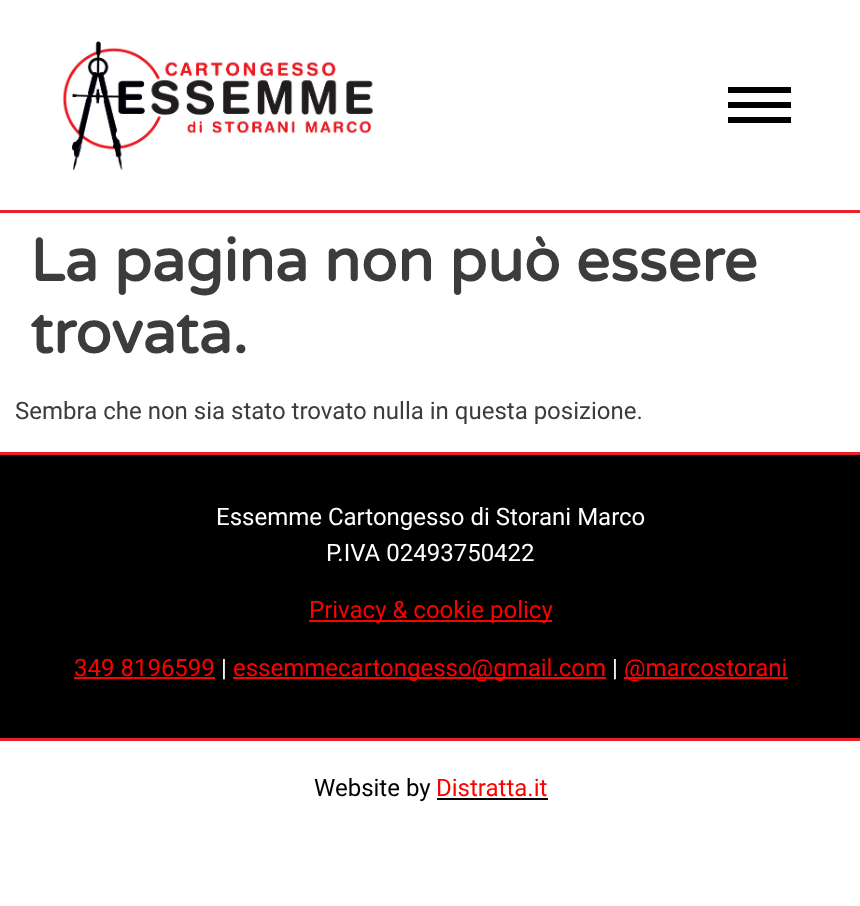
async function draw(canvas) {
  canvas.width = 860;
  canvas.height = 906;
  const ctx = canvas.getContext('2d');
  ctx.miterLimit = 4;
  ctx.fontKerning = 'normal';
  function label(s, x, y, font, color) {
    ctx.font = font;
    ctx.fillStyle = color;
    ctx.fillText(s, x, y);
  }
  function rect(x, y, w, h, color) {
    ctx.fillStyle = color;
    ctx.fillRect(x, y, w, h);
  }
  async function image(src, x, y, w, h) {
    const img = new Image();
    img.src = src;
    await img.decode();
    ctx.drawImage(img, x, y, w, h);
  }

  rect(0, 0, 860, 906, '#fff');
  rect(0, 210, 860, 3, '#eb1f26');
  await image('assets/img1.png', 62, 41, 311, 130);
  rect(728, 87, 63, 6, '#000');
  rect(728, 102, 63, 6, '#000');
  rect(728, 117, 63, 6, '#000');
  label('La pagina non può essere', 30, 281, 'bold 60px Varela Round', '#3c3c3c');
  label('trovata.', 30, 353, 'bold 60px Varela Round', '#3c3c3c');
  label('Sembra che non sia stato trovato nulla in questa posizione.', 15, 419, '24px Roboto', '#3c3c3c');
  rect(0, 455, 860, 283, '#000');
  rect(0, 452, 860, 3, '#eb1f26');
  label('Essemme Cartongesso di Storani Marco', 216, 525, '24px Roboto', '#fff');
  label('P.IVA 02493750422', 326, 561, '24px Roboto', '#fff');
  rect(309, 620, 243, 2, '#f00');
  label('Privacy & cookie policy', 309, 618, '24px Roboto', '#f00');
  label('349 8196599', 74, 676, '24px Roboto', '#f00');
  rect(74, 677, 141, 2, '#f00');
  label('|', 221, 676, '24px Roboto', '#fff');
  rect(233, 677, 373, 2, '#f00');
  label('essemmecartongesso@gmail.com', 233, 676, '24px Roboto', '#f00');
  label('|', 612, 676, '24px Roboto', '#fff');
  rect(624, 677, 164, 2, '#f00');
  label('@marcostorani', 624, 676, '24px Roboto', '#f00');
  rect(0, 738, 860, 3, '#eb1f26');
  label('Website by', 314, 796, '24px Roboto', '#000');
  label('Distratta.it', 436, 796, '24px Roboto', '#f00');
  rect(437, 798, 111, 2, '#000');
}

draw(document.querySelector('canvas'));
